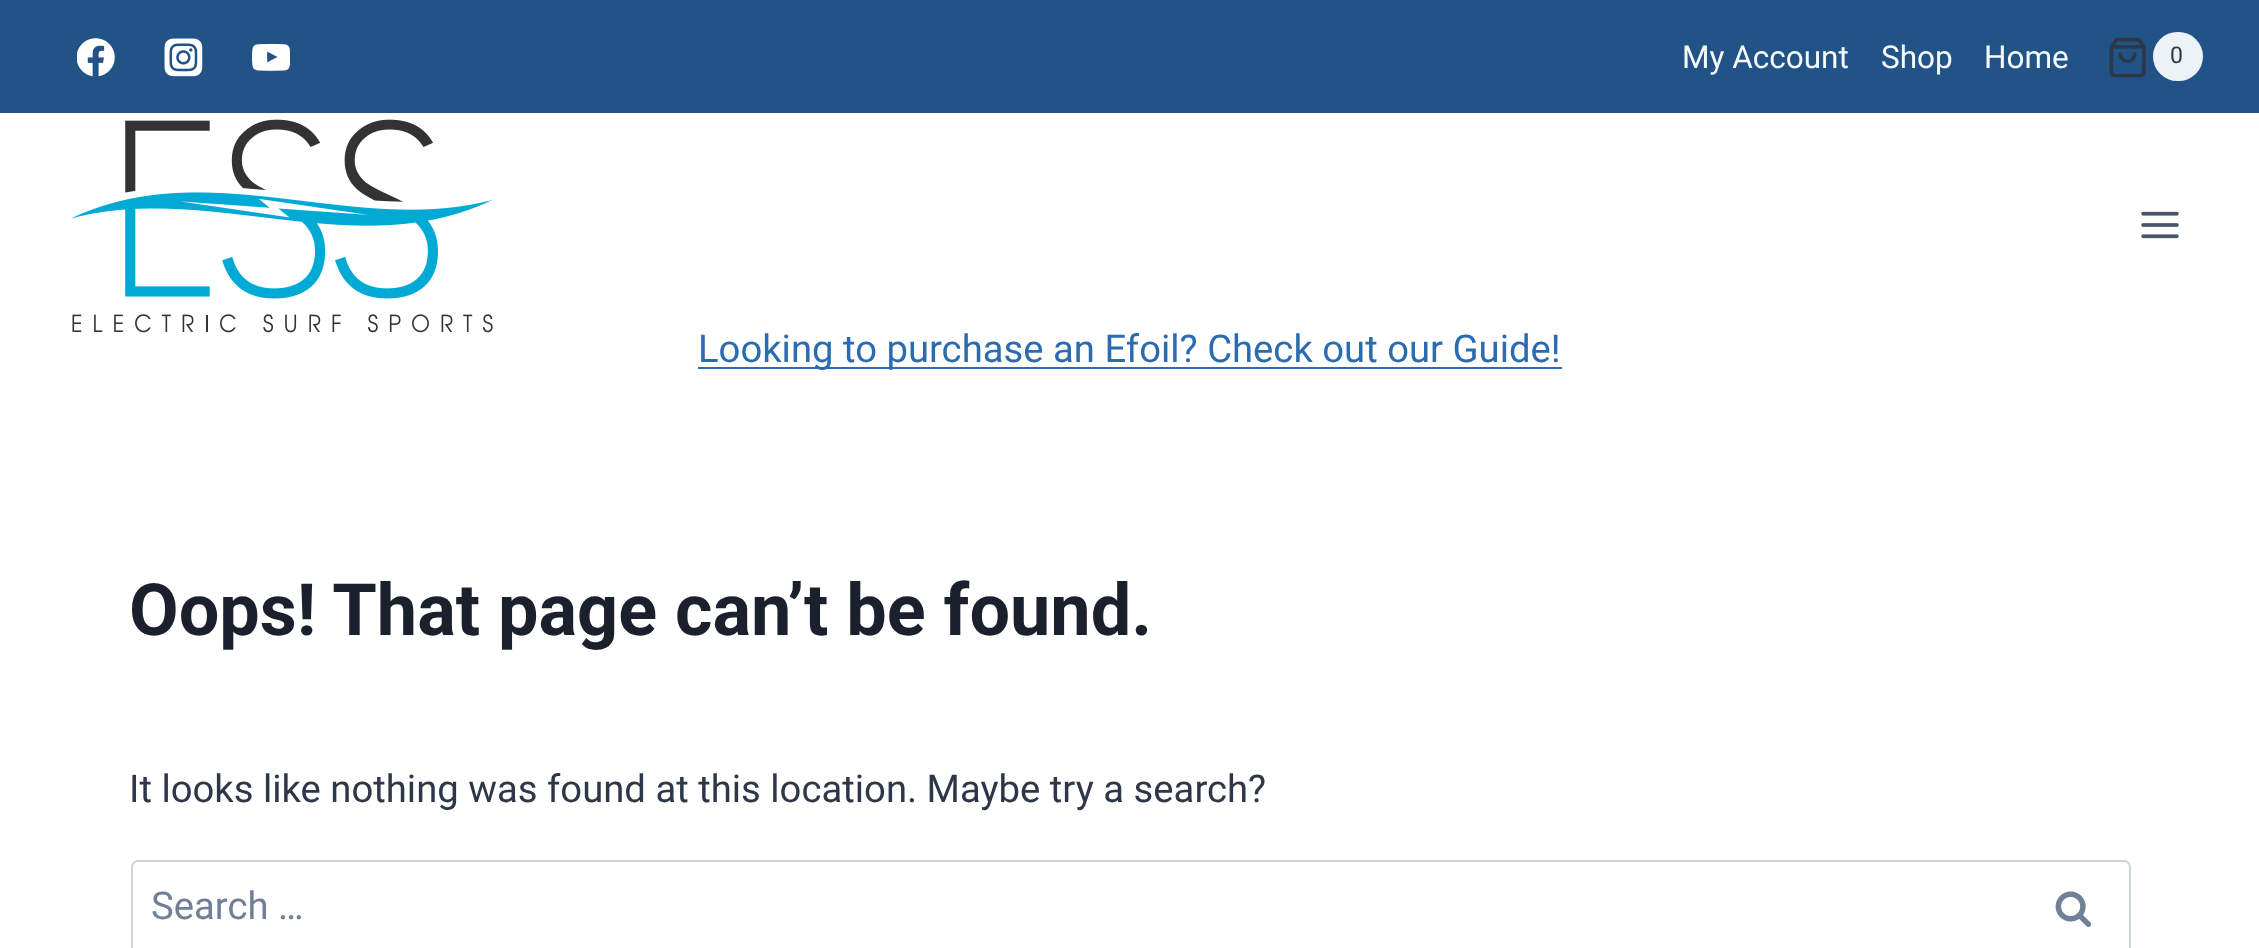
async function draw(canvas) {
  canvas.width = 2259;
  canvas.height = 948;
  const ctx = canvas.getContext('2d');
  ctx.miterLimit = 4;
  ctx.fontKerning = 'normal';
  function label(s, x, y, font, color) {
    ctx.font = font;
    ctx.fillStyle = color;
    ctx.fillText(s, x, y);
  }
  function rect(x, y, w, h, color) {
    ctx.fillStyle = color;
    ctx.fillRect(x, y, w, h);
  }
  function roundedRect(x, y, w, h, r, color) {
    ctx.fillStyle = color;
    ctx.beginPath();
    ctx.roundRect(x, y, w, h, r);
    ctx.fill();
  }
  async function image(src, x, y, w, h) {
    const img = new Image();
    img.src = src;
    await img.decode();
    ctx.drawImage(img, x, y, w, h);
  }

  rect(0, 0, 2259, 948, '#fff');
  rect(0, 0, 2259, 113, '#215387');
  await image('assets/img1.png', 77, 38, 38, 39);
  await image('assets/img2.png', 164, 38, 39, 39);
  await image('assets/img3.png', 252, 43, 38, 28);
  label('My Account', 1682, 68, '31.5px Roboto', '#f7fafc');
  label('Shop', 1881, 68, '31.5px Roboto', '#f7fafc');
  label('Home', 1984, 68, '31.5px Roboto', '#f7fafc');
  await image('assets/img4.png', 2109, 37, 37, 41);
  roundedRect(2153, 32, 50, 49, 24.5, '#edf2f7');
  label('0', 2170, 63, '23px Roboto', '#2d3748');
  await image('assets/img5.png', 71, 119, 422, 214);
  await image('assets/img6.png', 2141, 211, 38, 28);
  rect(698, 367, 864, 2, '#2b6cb0');
  label('Looking to purchase an Efoil? Check out our Guide!', 698, 362, '38.25px Roboto', '#2b6cb0');
  label('Oops! That page can’t be found.', 129, 635, 'bold 72px Roboto', '#1a202c');
  label('It looks like nothing was found at this location. Maybe try a search?', 129, 802, '38.25px Roboto', '#2d3748');
  ctx.beginPath();
  ctx.roundRect(132, 861, 1998, 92, 6);
  ctx.strokeStyle = '#cbd5e0';
  ctx.lineWidth = 2;
  ctx.stroke();
  label('Search …', 151, 919, '38.25px Roboto', '#718096');
  await image('assets/img7.png', 2055, 891, 37, 36);
}

draw(document.querySelector('canvas'));
